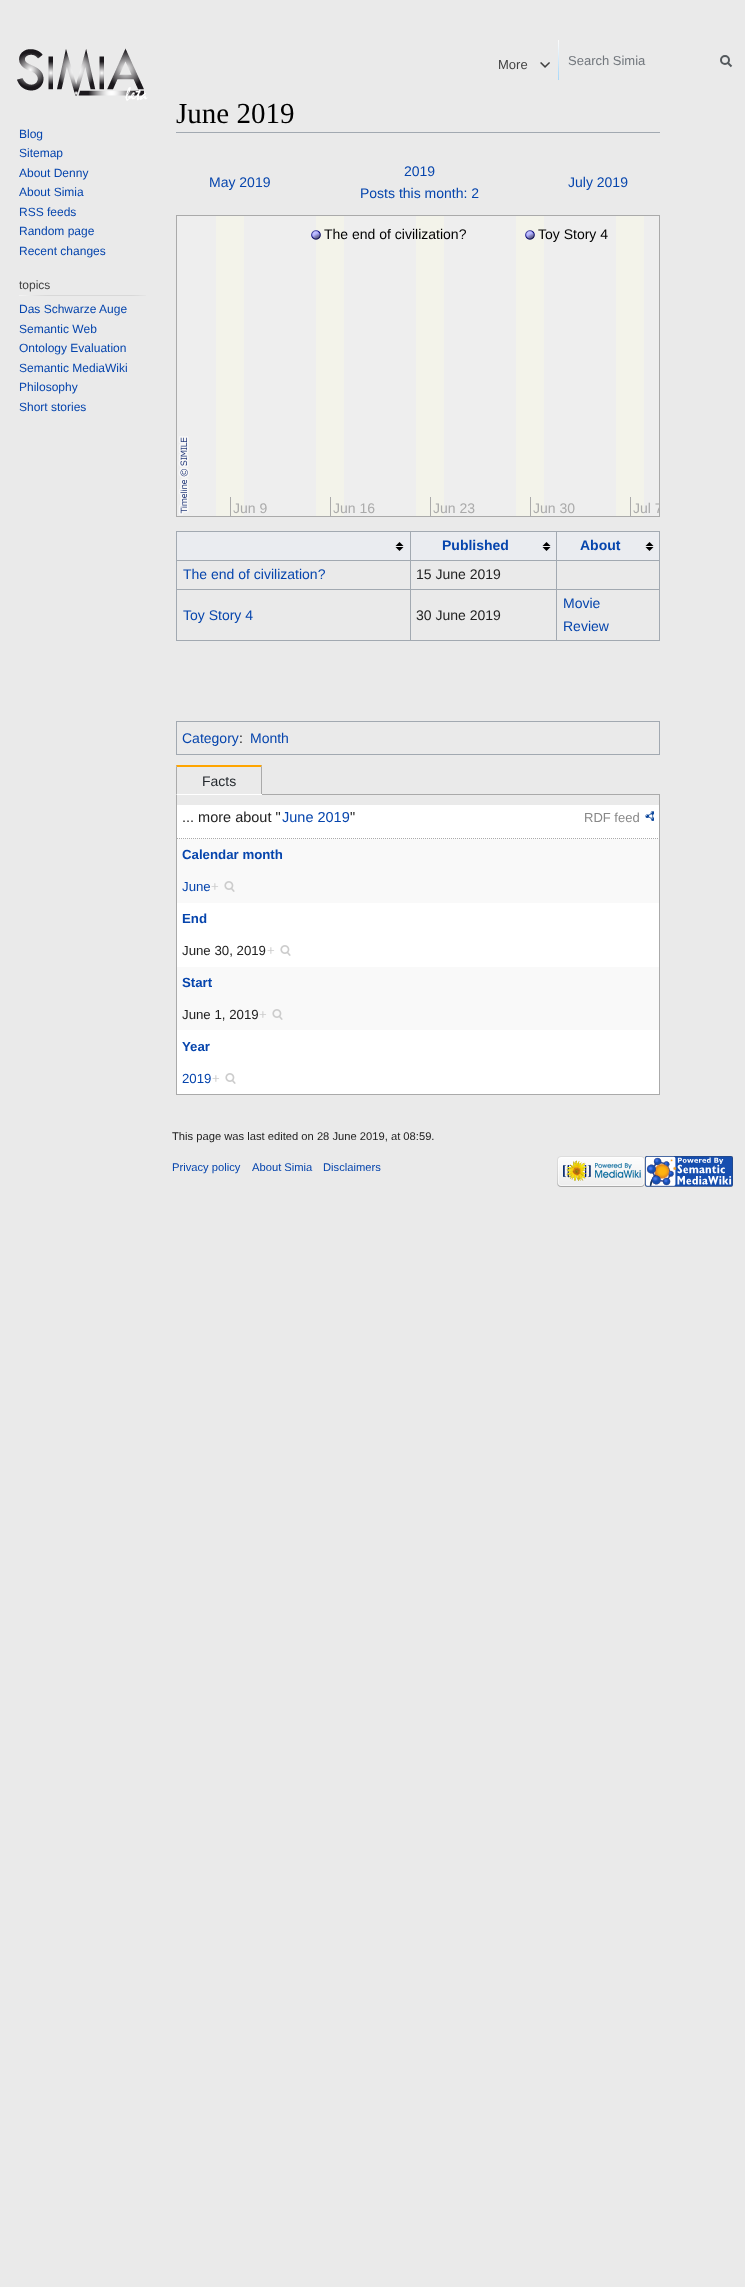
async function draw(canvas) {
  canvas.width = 745;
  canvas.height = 2287;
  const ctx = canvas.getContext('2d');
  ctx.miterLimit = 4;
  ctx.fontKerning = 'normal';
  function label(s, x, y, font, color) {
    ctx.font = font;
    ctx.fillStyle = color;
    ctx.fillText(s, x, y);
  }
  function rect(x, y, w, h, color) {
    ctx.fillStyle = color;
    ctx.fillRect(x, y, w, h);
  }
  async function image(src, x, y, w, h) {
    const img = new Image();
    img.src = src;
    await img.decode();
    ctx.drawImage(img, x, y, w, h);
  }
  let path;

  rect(0, 0, 745, 2287, '#eaeaea');
  await image('assets/img1.png', 558, 40, 1, 40);
  label('More', 498, 69, '13px Liberation Sans', '#444');
  await image('assets/img2.png', 540, 62, 10, 6);
  label('Search Simia', 568, 65, '13px Liberation Sans', '#72777d');
  path = new Path2D('M731.5 66.5L727.5 62.5');
  ctx.strokeStyle = '#54595d';
  ctx.lineWidth = 2;
  ctx.stroke(path);
  ctx.beginPath();
  ctx.arc(725, 60, 4, 0, 2 * Math.PI);
  ctx.stroke();
  await image('assets/img3.png', 17, 48, 131, 53);
  label('Blog', 19, 138, '12px Liberation Sans', '#0645ad');
  label('Sitemap', 19, 157, '12px Liberation Sans', '#0645ad');
  label('About Denny', 19, 177, '12px Liberation Sans', '#0645ad');
  label('About Simia', 19, 196, '12px Liberation Sans', '#0645ad');
  label('RSS feeds', 19, 216, '12px Liberation Sans', '#0645ad');
  label('Random page', 19, 235, '12px Liberation Sans', '#0645ad');
  label('Recent changes', 19, 255, '12px Liberation Sans', '#0645ad');
  label('topics', 19, 289, '12px Liberation Sans', '#444');
  await image('assets/img4.png', 19, 295, 127, 1);
  label('Das Schwarze Auge', 19, 313, '12px Liberation Sans', '#0645ad');
  label('Semantic Web', 19, 333, '12px Liberation Sans', '#0645ad');
  label('Ontology Evaluation', 19, 352, '12px Liberation Sans', '#0645ad');
  label('Semantic MediaWiki', 19, 372, '12px Liberation Sans', '#0645ad');
  label('Philosophy', 19, 391, '12px Liberation Sans', '#0645ad');
  label('Short stories', 19, 411, '12px Liberation Sans', '#0645ad');
  rect(176, 132, 484, 1, '#a2a9b1');
  label('June 2019', 176, 123, '29px Liberation Serif', '#000');
  label('May 2019', 209, 187, '14px Liberation Sans', '#0645ad');
  label('2019', 404, 176, '14px Liberation Sans', '#0645ad');
  label('Posts this month: 2', 360, 198, '14px Liberation Sans', '#0645ad');
  label('July 2019', 568, 187, '14px Liberation Sans', '#0645ad');
  ctx.strokeStyle = '#aaa';
  ctx.lineWidth = 1;
  ctx.strokeRect(176.5, 215.5, 483, 301);
  rect(177, 216, 482, 300, '#eee');
  await image('assets/img5.png', 178, 436, 12, 79);
  rect(216, 216, 28, 300, '#f3f3ea');
  rect(316, 216, 28, 300, '#f3f3ea');
  rect(416, 216, 28, 300, '#f3f3ea');
  rect(516, 216, 28, 300, '#f3f3ea');
  rect(616, 216, 28, 300, '#f3f3ea');
  await image('assets/img6.png', 311, 230, 10, 10);
  label('The end of civilization?', 324, 239, '14px Liberation Sans', '#000');
  await image('assets/img7.png', 525, 230, 10, 10);
  label('Toy Story 4', 538, 239, '14px Liberation Sans', '#000');
  rect(230, 497, 1, 19, '#aaa');
  label('Jun 9', 233, 513, '14px Liberation Sans', '#aaa');
  rect(330, 497, 1, 19, '#aaa');
  label('Jun 16', 333, 513, '14px Liberation Sans', '#aaa');
  rect(430, 497, 1, 19, '#aaa');
  label('Jun 23', 433, 513, '14px Liberation Sans', '#aaa');
  rect(530, 497, 1, 19, '#aaa');
  label('Jun 30', 533, 513, '14px Liberation Sans', '#aaa');
  rect(630, 497, 1, 19, '#aaa');
  ctx.save();
  ctx.beginPath();
  ctx.rect(177, 216, 482, 300);
  ctx.clip();
  label('Jul 7', 633, 513, '14px Liberation Sans', '#aaa');
  ctx.restore();
  rect(176, 531, 484, 1, '#a2a9b1');
  rect(659, 531, 1, 110, '#a2a9b1');
  rect(176, 640, 484, 1, '#a2a9b1');
  rect(176, 531, 1, 110, '#a2a9b1');
  rect(177, 532, 233, 28, '#eaecf0');
  await image('assets/img8.png', 395, 542, 9, 9);
  rect(411, 532, 145, 28, '#eaecf0');
  await image('assets/img8.png', 542, 542, 9, 9);
  rect(556, 560, 104, 1, '#a2a9b1');
  rect(556, 589, 104, 1, '#a2a9b1');
  rect(556, 589, 1, 52, '#a2a9b1');
  rect(410, 589, 147, 1, '#a2a9b1');
  rect(556, 560, 1, 30, '#a2a9b1');
  rect(410, 560, 147, 1, '#a2a9b1');
  rect(410, 589, 1, 52, '#a2a9b1');
  rect(176, 589, 235, 1, '#a2a9b1');
  rect(410, 560, 1, 30, '#a2a9b1');
  rect(176, 560, 235, 1, '#a2a9b1');
  rect(410, 531, 1, 30, '#a2a9b1');
  label('Published', 442, 550, 'bold 14px Liberation Sans', '#0645ad');
  rect(557, 532, 102, 28, '#eaecf0');
  await image('assets/img8.png', 645, 542, 9, 9);
  rect(556, 531, 1, 30, '#a2a9b1');
  label('About', 580, 550, 'bold 14px Liberation Sans', '#0645ad');
  label('The end of civilization?', 183, 579, '14px Liberation Sans', '#0645ad');
  label('15 June 2019', 416, 579, '14px Liberation Sans', '#222');
  label('Toy Story 4', 183, 620, '14px Liberation Sans', '#0645ad');
  label('30 June 2019', 416, 620, '14px Liberation Sans', '#222');
  label('Movie', 563, 608, '14px Liberation Sans', '#0645ad');
  label('Review', 563, 631, '14px Liberation Sans', '#0645ad');
  ctx.strokeStyle = '#a2a9b1';
  ctx.strokeRect(176.5, 721.5, 483, 33);
  label('Category', 182, 743, '14px Liberation Sans', '#0645ad');
  label(':', 239, 743, '14px Liberation Sans', '#222');
  label('Month', 250, 743, '14px Liberation Sans', '#0645ad');
  ctx.fillStyle = '#ffa500';
  path = new Path2D('M176 765H262L261 767H177Z');
  ctx.fill(path);
  ctx.strokeStyle = '#aaa';
  ctx.strokeRect(176.5, 794.5, 483, 300);
  ctx.fillStyle = '#aaa';
  path = new Path2D('M262 765V795L261 794V767Z');
  ctx.fill(path);
  rect(176, 794, 86, 1, '#fff');
  ctx.fillStyle = '#aaa';
  path = new Path2D('M176 795V765L177 767V794Z');
  ctx.fill(path);
  label('Facts', 202, 786, '14px Liberation Sans', '#24292e');
  rect(177, 805, 482, 289, '#fff');
  label('... more about "', 182, 822, '14.5px Liberation Sans', '#222');
  label('June 2019', 282, 822, '14.5px Liberation Sans', '#0645ad');
  label('"', 350, 822, '14.5px Liberation Sans', '#222');
  label('RDF feed', 584, 822, '13px Liberation Sans', '#888');
  await image('assets/img9.png', 645, 811, 9, 10);
  path = new Path2D('M177 838.5H659');
  ctx.setLineDash([1, 1]);
  ctx.stroke(path);
  rect(177, 839, 482, 64, '#f9f9f9');
  label('Calendar month', 182, 859, 'bold 13.25px Liberation Sans', '#0645ad');
  label('June', 182, 891, '13.25px Liberation Sans', '#0645ad');
  label('+', 211, 891, '13.25px Liberation Sans', '#ccc');
  await image('assets/img10.png', 224, 881, 11, 11);
  label('End', 182, 923, 'bold 13.25px Liberation Sans', '#0645ad');
  label('June 30, 2019', 182, 955, '13.25px Liberation Sans', '#222');
  label('+', 267, 955, '13.25px Liberation Sans', '#ccc');
  await image('assets/img11.png', 280, 945, 11, 11);
  rect(177, 967, 482, 63, '#f9f9f9');
  label('Start', 182, 987, 'bold 13.25px Liberation Sans', '#0645ad');
  label('June 1, 2019', 182, 1019, '13.25px Liberation Sans', '#222');
  label('+', 259, 1019, '13.25px Liberation Sans', '#ccc');
  await image('assets/img10.png', 272, 1009, 11, 11);
  label('Year', 182, 1051, 'bold 13.25px Liberation Sans', '#0645ad');
  label('2019', 182, 1083, '13.25px Liberation Sans', '#0645ad');
  label('+', 212, 1083, '13.25px Liberation Sans', '#ccc');
  await image('assets/img11.png', 225, 1073, 11, 11);
  label('This page was last edited on 28 June 2019, at 08:59.', 172, 1140, '11.2px Liberation Sans', '#222');
  label('Privacy policy', 172, 1171, '11.2px Liberation Sans', '#0645ad');
  label('About Simia', 252, 1171, '11.2px Liberation Sans', '#0645ad');
  label('Disclaimers', 323, 1171, '11.2px Liberation Sans', '#0645ad');
  await image('assets/img12.png', 557, 1156, 88, 31);
  await image('assets/img13.png', 645, 1156, 88, 31);
}

draw(document.querySelector('canvas'));
